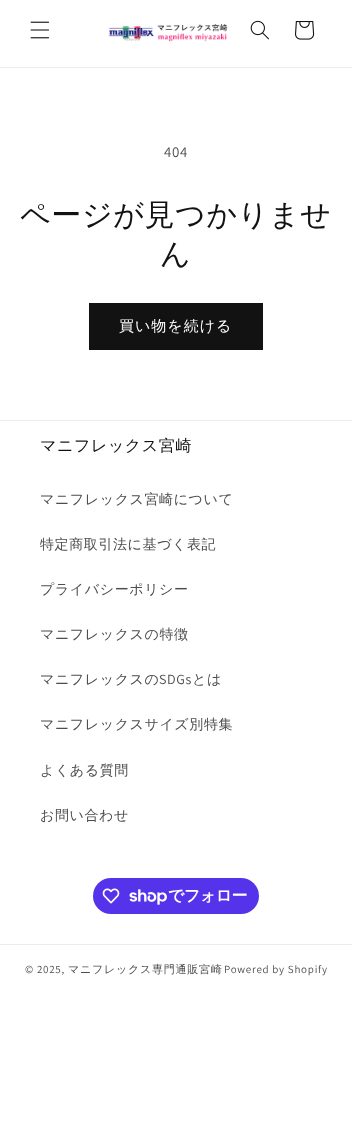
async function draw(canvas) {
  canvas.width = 352;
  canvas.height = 1147;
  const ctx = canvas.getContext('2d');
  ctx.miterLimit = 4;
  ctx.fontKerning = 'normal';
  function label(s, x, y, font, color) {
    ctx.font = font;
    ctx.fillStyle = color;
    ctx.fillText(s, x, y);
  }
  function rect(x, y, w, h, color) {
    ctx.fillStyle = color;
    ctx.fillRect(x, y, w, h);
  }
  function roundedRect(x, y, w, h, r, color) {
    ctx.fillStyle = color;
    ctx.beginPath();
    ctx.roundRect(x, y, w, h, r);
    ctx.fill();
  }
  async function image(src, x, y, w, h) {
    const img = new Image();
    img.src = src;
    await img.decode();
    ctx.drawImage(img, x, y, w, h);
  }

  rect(0, 0, 352, 1147, '#fff');
  rect(0, 67, 352, 1, '#ececec');
  await image('assets/img1.png', 30, 21, 20, 18);
  await image('assets/img2.png', 108, 23, 120, 19);
  await image('assets/img3.png', 250, 20, 19, 20);
  await image('assets/img4.png', 295, 21, 20, 19);
  ctx.letterSpacing = '0.6px';
  label('404', 164, 157, '15px Assistant', '#4d4d4d');
  label('ページが見つかりませ', 20, 225, '500 30px WenQuanYi Zen Hei', '#121212');
  label('ん', 160, 264, '500 30px WenQuanYi Zen Hei', '#121212');
  rect(89, 303, 174, 47, '#121212');
  ctx.letterSpacing = '1px';
  label('買い物を続ける', 119, 331, '500 15px WenQuanYi Zen Hei', '#fff');
  rect(0, 420, 352, 1, '#ececec');
  ctx.letterSpacing = '0.6px';
  label('マニフレックス宮崎', 40, 451, '500 16px WenQuanYi Zen Hei', '#121212');
  label('マニフレックス宮崎について', 40, 504, '500 14px WenQuanYi Zen Hei', '#4d4d4d');
  label('特定商取引法に基づく表記', 40, 549, '500 14px WenQuanYi Zen Hei', '#4d4d4d');
  label('プライバシーポリシー', 40, 594, '500 14px WenQuanYi Zen Hei', '#4d4d4d');
  label('マニフレックスの特徴', 40, 639, '500 14px WenQuanYi Zen Hei', '#4d4d4d');
  label('マニフレックスの', 40, 684, '500 14px WenQuanYi Zen Hei', '#4d4d4d');
  label('SDGs', 159, 684, '14px Assistant', '#4d4d4d');
  label('とは', 192, 684, '500 14px WenQuanYi Zen Hei', '#4d4d4d');
  label('マニフレックスサイズ別特集', 40, 729, '500 14px WenQuanYi Zen Hei', '#4d4d4d');
  label('よくある質問', 40, 775, '500 14px WenQuanYi Zen Hei', '#4d4d4d');
  label('お問い合わせ', 40, 820, '500 14px WenQuanYi Zen Hei', '#4d4d4d');
  roundedRect(93, 878, 166, 36, 18, '#5433eb');
  await image('assets/img5.png', 102, 888, 18, 16);
  await image('assets/img6.png', 129, 889, 38, 16);
  ctx.letterSpacing = '-0.5px';
  label('でフォロー', 168, 901, 'bold 16px WenQuanYi Zen Hei', '#fff');
  rect(0, 944, 352, 1, '#ececec');
  ctx.letterSpacing = '0.75px';
  label('© 2025,', 25, 973, '11px Assistant', '#4d4d4d');
  label('マニフレックス専門通販宮崎', 68, 973, '500 11px WenQuanYi Zen Hei', '#4d4d4d');
  label('Powered by Shopify', 224, 973, '11px Assistant', '#4d4d4d');
}

draw(document.querySelector('canvas'));
